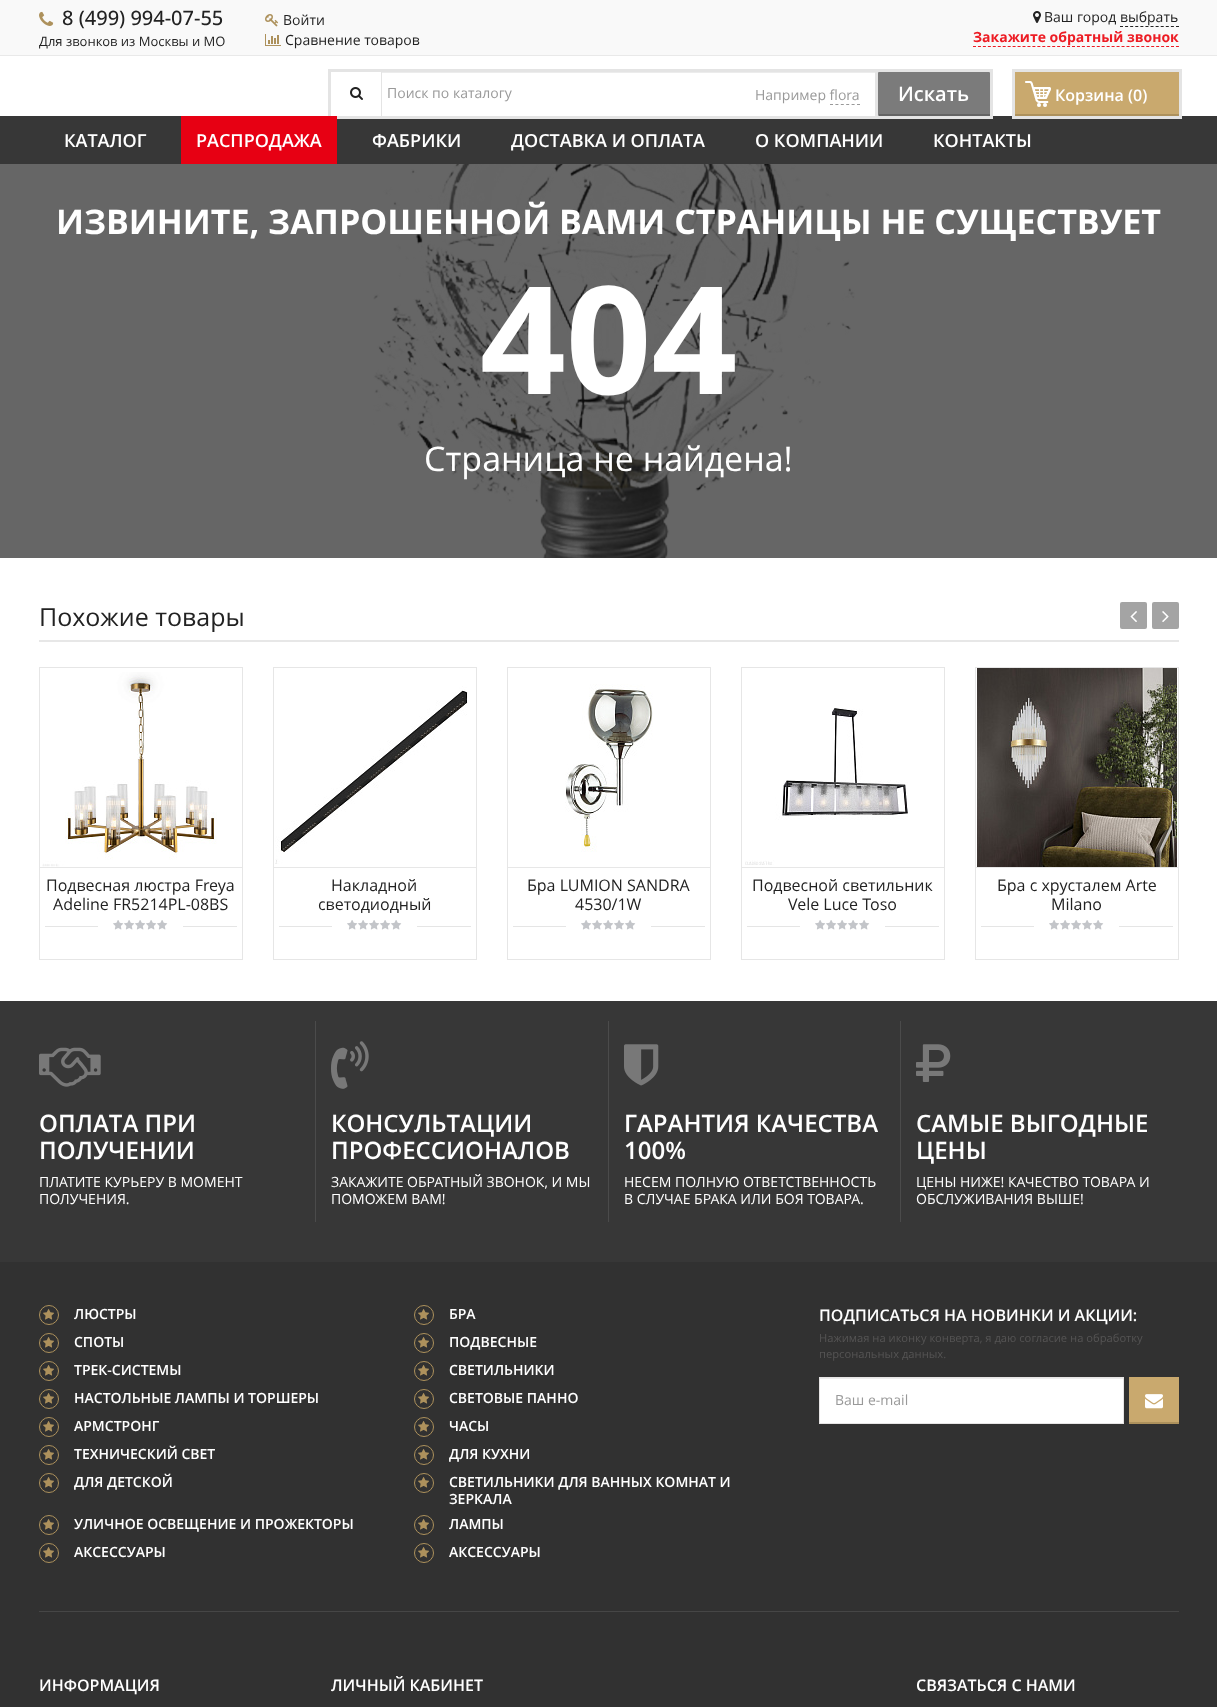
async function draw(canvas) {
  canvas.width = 1217;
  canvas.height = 1707;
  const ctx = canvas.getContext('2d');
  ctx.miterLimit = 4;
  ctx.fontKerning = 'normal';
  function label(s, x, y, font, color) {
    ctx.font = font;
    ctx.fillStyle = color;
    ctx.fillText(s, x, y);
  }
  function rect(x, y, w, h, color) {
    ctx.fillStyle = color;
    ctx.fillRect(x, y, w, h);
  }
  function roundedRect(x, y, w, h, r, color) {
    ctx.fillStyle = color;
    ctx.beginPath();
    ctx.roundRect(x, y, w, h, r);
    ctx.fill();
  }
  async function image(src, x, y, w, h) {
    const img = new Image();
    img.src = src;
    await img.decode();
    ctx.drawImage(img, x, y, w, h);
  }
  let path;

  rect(0, 0, 1217, 1707, '#fff');
  rect(0, 164, 1217, 394, '#666');
  rect(0, 0, 1217, 55, '#f9f9f9');
  rect(0, 55, 1217, 1, '#e9e9e9');
  await image('assets/img1.png', 39, 11, 15, 15);
  label('8 (499) 994-07-55', 62, 25, '500 20px Open Sans', '#222');
  label('Для звонков из Москвы и МО', 39, 46, '13px Open Sans', '#222');
  await image('assets/img2.png', 265, 14, 14, 13);
  label('Войти', 283, 25, '14px Open Sans', '#222');
  await image('assets/img3.png', 265, 34, 16, 12);
  label('Сравнение товаров', 285, 45, '14px Open Sans', '#222');
  await image('assets/img4.png', 1033, 11, 8, 12);
  label('Ваш город выбрать', 1044, 22, '14px Open Sans', '#222');
  path = new Path2D('M1120 26.5H1179');
  ctx.strokeStyle = '#222';
  ctx.setLineDash([3, 2.09]);
  ctx.stroke(path);
  label('Закажите обратный звонок', 973, 42, 'bold 14px Open Sans', '#ed1c24');
  path = new Path2D('M973 46.5H1179');
  ctx.strokeStyle = '#ed1c24';
  ctx.setLineDash([3, 1.95]);
  ctx.stroke(path);
  rect(0, 116, 1217, 48, '#373737');
  ctx.strokeStyle = '#e4e4e4';
  ctx.lineWidth = 3;
  ctx.setLineDash([]);
  ctx.strokeRect(329.5, 70.5, 662, 47);
  await image('assets/img5.png', 350, 87, 13, 13);
  rect(381, 72, 1, 45, '#e4e4e4');
  rect(382, 72, 608, 1, '#ececec');
  label('Поиск по каталогу', 387, 98, '14px Open Sans', '#999');
  label('Например flora', 755, 100, '14px Open Sans', '#999');
  path = new Path2D('M830 104.5H860');
  ctx.strokeStyle = '#999';
  ctx.lineWidth = 1;
  ctx.setLineDash([3, 2.4]);
  ctx.stroke(path);
  ctx.save();
  ctx.beginPath();
  ctx.rect(382, 72, 608, 45);
  ctx.clip();
  ctx.beginPath();
  ctx.roundRect(876.5, 70.5, 115, 47, 2.5);
  ctx.strokeStyle = '#e4e4e4';
  ctx.lineWidth = 3;
  ctx.setLineDash([]);
  ctx.stroke();
  ctx.restore();
  roundedRect(878, 72, 112, 44, 1, '#7b7b7b');
  rect(879, 114, 111, 2, '#646464');
  label('Искать', 898, 101, '600 20px Open Sans', '#fff');
  ctx.strokeStyle = '#e4e4e4';
  ctx.lineWidth = 3;
  ctx.setLineDash([]);
  ctx.strokeRect(1013.5, 70.5, 167, 47);
  rect(1015, 72, 164, 42, '#c9a96e');
  await image('assets/img6.png', 1025, 81, 26, 26);
  rect(1015, 114, 164, 2, '#ad915c');
  label('Корзина (0)', 1055, 101, '600 16px Open Sans', '#fff');
  label('КАТАЛОГ', 64, 147, '600 18px Open Sans', '#fff');
  rect(181, 116, 156, 48, '#e70013');
  label('РАСПРОДАЖА', 196, 147, '600 18px Open Sans', '#fff');
  label('ФАБРИКИ', 372, 147, '600 18px Open Sans', '#fff');
  label('ДОСТАВКА И ОПЛАТА', 511, 147, '600 18px Open Sans', '#fff');
  label('О КОМПАНИИ', 755, 147, '600 18px Open Sans', '#fff');
  label('КОНТАКТЫ', 933, 147, '600 18px Open Sans', '#fff');
  await image('assets/img7.png', 373, 164, 482, 394);
  label('ИЗВИНИТЕ, ЗАПРОШЕННОЙ ВАМИ СТРАНИЦЫ НЕ СУЩЕСТВУЕТ', 56, 234, 'bold 34px Open Sans', '#fff');
  label('404', 480, 394, 'bold 150px Open Sans', '#fff');
  label('Страница не найдена!', 424, 471, '34px Open Sans', '#fff');
  rect(39, 640, 1140, 2, '#e7e7e7');
  label('Похожие товары', 39, 626, '25px "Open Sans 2"', '#222');
  roundedRect(1120, 602, 27, 27, 2, '#a4a4a4');
  await image('assets/img8.png', 1130, 611, 7, 11);
  roundedRect(1152, 602, 27, 27, 2, '#a4a4a4');
  await image('assets/img9.png', 1162, 611, 7, 11);
  ctx.strokeStyle = '#e6e6e6';
  ctx.lineWidth = 1;
  ctx.strokeRect(39.5, 667.5, 203, 292);
  rect(40, 867, 202, 1, '#e7e7e7');
  await image('assets/img10.png', 42, 672, 175, 195);
  label('Подвесная люстра Freya', 46, 891, '16px Open Sans', '#222');
  label('Adeline FR5214PL-08BS', 53, 910, '16px Open Sans', '#222');
  rect(45, 926, 192, 1, '#e5e5e5');
  rect(98, 926, 85, 1, '#fff');
  await image('assets/img11.png', 113, 920, 11, 10);
  await image('assets/img11.png', 124, 920, 11, 10);
  await image('assets/img11.png', 135, 920, 11, 10);
  await image('assets/img11.png', 146, 920, 11, 10);
  await image('assets/img11.png', 157, 920, 11, 10);
  ctx.strokeRect(273.5, 667.5, 203, 292);
  rect(274, 867, 202, 1, '#e7e7e7');
  await image('assets/img12.png', 275, 686, 193, 178);
  label('Накладной', 331, 891, '16px Open Sans', '#222');
  label('светодиодный', 318, 910, '16px Open Sans', '#222');
  rect(279, 926, 192, 1, '#e5e5e5');
  rect(332, 926, 85, 1, '#fff');
  await image('assets/img11.png', 347, 920, 11, 10);
  await image('assets/img11.png', 358, 920, 11, 10);
  await image('assets/img11.png', 369, 920, 11, 10);
  await image('assets/img11.png', 380, 920, 11, 10);
  await image('assets/img11.png', 391, 920, 11, 10);
  ctx.strokeRect(507.5, 667.5, 203, 292);
  rect(508, 867, 202, 1, '#e7e7e7');
  await image('assets/img13.png', 565, 684, 88, 168);
  label('Бра LUMION SANDRA', 527, 891, '16px Open Sans', '#222');
  label('4530/1W', 575, 910, '16px Open Sans', '#222');
  rect(513, 926, 192, 1, '#e5e5e5');
  rect(566, 926, 85, 1, '#fff');
  await image('assets/img11.png', 581, 920, 11, 10);
  await image('assets/img11.png', 592, 920, 11, 10);
  await image('assets/img11.png', 603, 920, 11, 10);
  await image('assets/img11.png', 614, 920, 11, 10);
  await image('assets/img11.png', 625, 920, 11, 10);
  ctx.strokeRect(741.5, 667.5, 203, 292);
  rect(742, 867, 202, 1, '#e7e7e7');
  await image('assets/img14.png', 745, 708, 163, 157);
  label('Подвесной светильник', 752, 891, '16px Open Sans', '#222');
  label('Vele Luce Toso', 788, 910, '16px Open Sans', '#222');
  rect(747, 926, 192, 1, '#e5e5e5');
  rect(800, 926, 85, 1, '#fff');
  await image('assets/img11.png', 815, 920, 11, 10);
  await image('assets/img11.png', 826, 920, 11, 10);
  await image('assets/img11.png', 837, 920, 11, 10);
  await image('assets/img11.png', 848, 920, 11, 10);
  await image('assets/img11.png', 859, 920, 11, 10);
  ctx.strokeRect(975.5, 667.5, 203, 292);
  rect(976, 867, 202, 1, '#e7e7e7');
  await image('assets/img15.png', 977, 668, 200, 199);
  label('Бра с хрусталем Arte', 997, 891, '16px Open Sans', '#222');
  label('Milano', 1051, 910, '16px Open Sans', '#222');
  rect(981, 926, 192, 1, '#e5e5e5');
  rect(1034, 926, 85, 1, '#fff');
  await image('assets/img11.png', 1049, 920, 11, 10);
  await image('assets/img11.png', 1060, 920, 11, 10);
  await image('assets/img11.png', 1071, 920, 11, 10);
  await image('assets/img11.png', 1082, 920, 11, 10);
  await image('assets/img11.png', 1093, 920, 11, 10);
  rect(0, 1001, 1217, 261, '#373737');
  await image('assets/img16.png', 39, 1047, 62, 40);
  label('ОПЛАТА ПРИ', 39, 1132, '600 24px Open Sans', '#fff');
  label('ПОЛУЧЕНИИ', 39, 1159, '600 24px Open Sans', '#fff');
  label('ПЛАТИТЕ КУРЬЕРУ В МОМЕНТ', 39, 1187, '14px Open Sans', '#fff');
  label('ПОЛУЧЕНИЯ.', 39, 1204, '14px Open Sans', '#fff');
  rect(315, 1021, 1, 201, '#4b4b4b');
  await image('assets/img17.png', 331, 1041, 38, 48);
  label('КОНСУЛЬТАЦИИ', 331, 1132, '600 24px Open Sans', '#fff');
  label('ПРОФЕССИОНАЛОВ', 331, 1159, '600 24px Open Sans', '#fff');
  label('ЗАКАЖИТЕ ОБРАТНЫЙ ЗВОНОК, И МЫ', 331, 1187, '14px Open Sans', '#fff');
  label('ПОМОЖЕМ ВАМ!', 331, 1204, '14px Open Sans', '#fff');
  rect(608, 1021, 1, 201, '#4b4b4b');
  await image('assets/img18.png', 624, 1044, 35, 42);
  label('ГАРАНТИЯ КАЧЕСТВА', 624, 1132, '600 24px Open Sans', '#fff');
  label('100%', 624, 1159, '600 24px Open Sans', '#fff');
  label('НЕСЕМ ПОЛНУЮ ОТВЕТСТВЕННОСТЬ', 624, 1187, '14px Open Sans', '#fff');
  label('В СЛУЧАЕ БРАКА ИЛИ БОЯ ТОВАРА.', 624, 1204, '14px Open Sans', '#fff');
  rect(900, 1021, 1, 201, '#4b4b4b');
  await image('assets/img19.png', 916, 1044, 35, 38);
  label('САМЫЕ ВЫГОДНЫЕ', 916, 1132, '600 24px Open Sans', '#fff');
  label('ЦЕНЫ', 916, 1159, '600 24px Open Sans', '#fff');
  label('ЦЕНЫ НИЖЕ! КАЧЕСТВО ТОВАРА И', 916, 1187, '14px Open Sans', '#fff');
  label('ОБСЛУЖИВАНИЯ ВЫШЕ!', 916, 1204, '14px Open Sans', '#fff');
  rect(0, 1262, 1217, 445, '#313131');
  ctx.beginPath();
  ctx.arc(49, 1315, 9.5, 0, 2 * Math.PI);
  ctx.strokeStyle = '#ad915c';
  ctx.stroke();
  await image('assets/img20.png', 43, 1309, 11, 11);
  label('ЛЮСТРЫ', 74, 1319, '600 14px Open Sans', '#fff');
  ctx.beginPath();
  ctx.arc(424, 1315, 9.5, 0, 2 * Math.PI);
  ctx.stroke();
  await image('assets/img20.png', 418, 1309, 11, 11);
  label('БРА', 449, 1319, '600 14px Open Sans', '#fff');
  ctx.beginPath();
  ctx.arc(49, 1343, 9.5, 0, 2 * Math.PI);
  ctx.stroke();
  await image('assets/img20.png', 43, 1337, 11, 11);
  label('СПОТЫ', 74, 1347, '600 14px Open Sans', '#fff');
  ctx.beginPath();
  ctx.arc(424, 1343, 9.5, 0, 2 * Math.PI);
  ctx.stroke();
  await image('assets/img20.png', 418, 1337, 11, 11);
  label('ПОДВЕСНЫЕ', 449, 1347, '600 14px Open Sans', '#fff');
  ctx.beginPath();
  ctx.arc(49, 1371, 9.5, 0, 2 * Math.PI);
  ctx.stroke();
  await image('assets/img20.png', 43, 1365, 11, 11);
  label('ТРЕК-СИСТЕМЫ', 74, 1375, '600 14px Open Sans', '#fff');
  ctx.beginPath();
  ctx.arc(424, 1371, 9.5, 0, 2 * Math.PI);
  ctx.stroke();
  await image('assets/img20.png', 418, 1365, 11, 11);
  label('СВЕТИЛЬНИКИ', 449, 1375, '600 14px Open Sans', '#fff');
  ctx.beginPath();
  ctx.arc(49, 1399, 9.5, 0, 2 * Math.PI);
  ctx.stroke();
  await image('assets/img20.png', 43, 1393, 11, 11);
  label('НАСТОЛЬНЫЕ ЛАМПЫ И ТОРШЕРЫ', 74, 1403, '600 14px Open Sans', '#fff');
  ctx.beginPath();
  ctx.arc(424, 1399, 9.5, 0, 2 * Math.PI);
  ctx.stroke();
  await image('assets/img20.png', 418, 1393, 11, 11);
  label('СВЕТОВЫЕ ПАННО', 449, 1403, '600 14px Open Sans', '#fff');
  ctx.beginPath();
  ctx.arc(49, 1427, 9.5, 0, 2 * Math.PI);
  ctx.stroke();
  await image('assets/img20.png', 43, 1421, 11, 11);
  label('АРМСТРОНГ', 74, 1431, '600 14px Open Sans', '#fff');
  ctx.beginPath();
  ctx.arc(424, 1427, 9.5, 0, 2 * Math.PI);
  ctx.stroke();
  await image('assets/img20.png', 418, 1421, 11, 11);
  label('ЧАСЫ', 449, 1431, '600 14px Open Sans', '#fff');
  ctx.beginPath();
  ctx.arc(49, 1455, 9.5, 0, 2 * Math.PI);
  ctx.stroke();
  await image('assets/img20.png', 43, 1449, 11, 11);
  label('ТЕХНИЧЕСКИЙ СВЕТ', 74, 1459, '600 14px Open Sans', '#fff');
  ctx.beginPath();
  ctx.arc(424, 1455, 9.5, 0, 2 * Math.PI);
  ctx.stroke();
  await image('assets/img20.png', 418, 1449, 11, 11);
  label('ДЛЯ КУХНИ', 449, 1459, '600 14px Open Sans', '#fff');
  ctx.beginPath();
  ctx.arc(49, 1483, 9.5, 0, 2 * Math.PI);
  ctx.stroke();
  await image('assets/img20.png', 43, 1477, 11, 11);
  label('ДЛЯ ДЕТСКОЙ', 74, 1487, '600 14px Open Sans', '#fff');
  ctx.beginPath();
  ctx.arc(424, 1483, 9.5, 0, 2 * Math.PI);
  ctx.stroke();
  await image('assets/img20.png', 418, 1477, 11, 11);
  label('СВЕТИЛЬНИКИ ДЛЯ ВАННЫХ КОМНАТ И', 449, 1487, '600 14px Open Sans', '#fff');
  label('ЗЕРКАЛА', 449, 1504, '600 14px Open Sans', '#fff');
  ctx.beginPath();
  ctx.arc(49, 1525, 9.5, 0, 2 * Math.PI);
  ctx.stroke();
  await image('assets/img20.png', 43, 1519, 11, 11);
  label('УЛИЧНОЕ ОСВЕЩЕНИЕ И ПРОЖЕКТОРЫ', 74, 1529, '600 14px Open Sans', '#fff');
  ctx.beginPath();
  ctx.arc(424, 1525, 9.5, 0, 2 * Math.PI);
  ctx.stroke();
  await image('assets/img20.png', 418, 1519, 11, 11);
  label('ЛАМПЫ', 449, 1529, '600 14px Open Sans', '#fff');
  ctx.beginPath();
  ctx.arc(49, 1553, 9.5, 0, 2 * Math.PI);
  ctx.stroke();
  await image('assets/img20.png', 43, 1547, 11, 11);
  label('АКСЕССУАРЫ', 74, 1557, '600 14px Open Sans', '#fff');
  ctx.beginPath();
  ctx.arc(424, 1553, 9.5, 0, 2 * Math.PI);
  ctx.stroke();
  await image('assets/img20.png', 418, 1547, 11, 11);
  label('АКСЕССУАРЫ', 449, 1557, '600 14px Open Sans', '#fff');
  label('ПОДПИСАТЬСЯ НА НОВИНКИ И АКЦИИ:', 819, 1321, '600 16px Open Sans', '#fff');
  label('Нажимая на иконку конверта, я даю согласие на обработку', 819, 1342, '11.2px Open Sans', '#555454');
  label('персональных данных.', 819, 1358, '11.2px Open Sans', '#555454');
  rect(820, 1379, 303, 44, '#fff');
  rect(820, 1378, 303, 1, '#ececec');
  ctx.strokeStyle = '#e6e4e4';
  ctx.strokeRect(819.5, 1377.5, 304, 46);
  label('Ваш e-mail', 835, 1405, '14px Open Sans', '#999');
  rect(1129, 1377, 50, 45, '#c9a96e');
  rect(1129, 1422, 50, 2, '#ad915c');
  await image('assets/img21.png', 1145, 1394, 18, 15);
  rect(39, 1611, 1140, 1, '#464646');
  label('ИНФОРМАЦИЯ', 39, 1691, '600 16px Open Sans', '#fff');
  label('ЛИЧНЫЙ КАБИНЕТ', 331, 1691, '600 16px Open Sans', '#fff');
  label('СВЯЗАТЬСЯ С НАМИ', 916, 1691, '600 16px Open Sans', '#fff');
}

draw(document.querySelector('canvas'));
